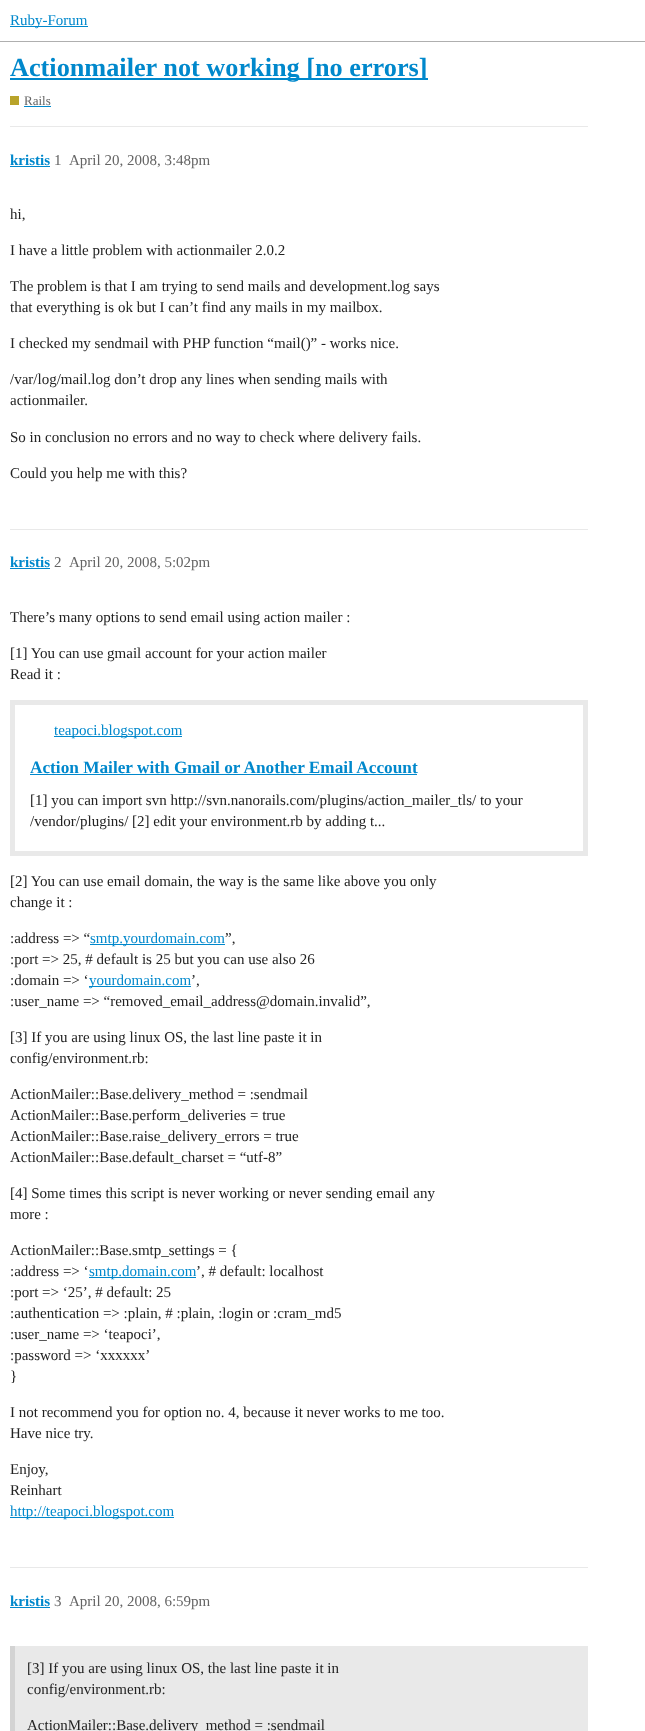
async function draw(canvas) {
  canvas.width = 645;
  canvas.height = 1731;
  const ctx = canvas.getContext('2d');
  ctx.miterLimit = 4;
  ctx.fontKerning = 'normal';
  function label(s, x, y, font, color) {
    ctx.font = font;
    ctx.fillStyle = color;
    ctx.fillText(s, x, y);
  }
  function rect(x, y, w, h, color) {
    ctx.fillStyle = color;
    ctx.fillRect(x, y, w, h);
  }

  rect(0, 0, 645, 1731, '#fff');
  rect(0, 41, 645, 1, '#afafaf');
  rect(10, 26, 78, 1, '#08c');
  label('Ruby-Forum', 10, 25, '15px Liberation Serif', '#08c');
  rect(10, 78, 418, 2, '#08c');
  label('Actionmailer not working [no errors]', 10, 76, 'bold 26.25px Liberation Serif', '#08c');
  rect(10, 96, 9, 9, '#b8a32a');
  label('Rails', 24, 105, '13px Liberation Serif', '#646464');
  rect(24, 106, 27, 1, '#08c');
  rect(10, 126, 578, 1, '#e9e9e9');
  label('kristis', 10, 165, 'bold 15px Liberation Serif', '#08c');
  rect(10, 166, 40, 1, '#08c');
  label('1', 54, 165, '15px Liberation Serif', '#646464');
  label('April 20, 2008, 3:48pm', 69, 165, '15px Liberation Serif', '#646464');
  label('hi,', 10, 219, '15px Liberation Serif', '#222');
  label('I have a little problem with actionmailer 2.0.2', 10, 255, '15px Liberation Serif', '#222');
  label('The problem is that I am trying to send mails and development.log says', 10, 291, '15px Liberation Serif', '#222');
  label('that everything is ok but I can’t find any mails in my mailbox.', 10, 312, '15px Liberation Serif', '#222');
  label('I checked my sendmail with PHP function “mail()” - works nice.', 10, 348, '15px Liberation Serif', '#222');
  label('/var/log/mail.log don’t drop any lines when sending mails with', 10, 384, '15px Liberation Serif', '#222');
  label('actionmailer.', 10, 405, '15px Liberation Serif', '#222');
  label('So in conclusion no errors and no way to check where delivery fails.', 10, 442, '15px Liberation Serif', '#222');
  label('Could you help me with this?', 10, 478, '15px Liberation Serif', '#222');
  rect(10, 529, 578, 1, '#e9e9e9');
  label('kristis', 10, 567, 'bold 15px Liberation Serif', '#08c');
  rect(10, 568, 40, 1, '#08c');
  label('2', 54, 567, '15px Liberation Serif', '#646464');
  label('April 20, 2008, 5:02pm', 69, 567, '15px Liberation Serif', '#646464');
  label('There’s many options to send email using action mailer :', 10, 622, '15px Liberation Serif', '#222');
  label('[1] You can use gmail account for your action mailer', 10, 658, '15px Liberation Serif', '#222');
  label('Read it :', 10, 679, '15px Liberation Serif', '#222');
  ctx.strokeStyle = '#e9e9e9';
  ctx.lineWidth = 5;
  ctx.strokeRect(12.5, 702.5, 573, 151);
  rect(54, 736, 128, 1, '#08c');
  label('teapoci.blogspot.com', 54, 735, '15px Liberation Serif', '#08c');
  label('Action Mailer with Gmail or Another Email Account', 30, 773, 'bold 17.25px Liberation Serif', '#08c');
  rect(30, 774, 387, 1, '#08c');
  label('[1] you can import svn http://svn.nanorails.com/plugins/action_mailer_tls/ to your', 30, 805, '15px Liberation Serif', '#222');
  label('/vendor/plugins/ [2] edit your environment.rb by adding t...', 30, 826, '15px Liberation Serif', '#222');
  label('[2] You can use email domain, the way is the same like above you only', 10, 886, '15px Liberation Serif', '#222');
  label('change it :', 10, 907, '15px Liberation Serif', '#222');
  label(':address => “', 10, 943, '15px Liberation Serif', '#222');
  rect(90, 944, 135, 1, '#08c');
  label('smtp.yourdomain.com', 90, 943, '15px Liberation Serif', '#08c');
  label('”,', 225, 943, '15px Liberation Serif', '#222');
  label(':port => 25, # default is 25 but you can use also 26', 10, 964, '15px Liberation Serif', '#222');
  label(':domain => ‘', 10, 985, '15px Liberation Serif', '#222');
  rect(89, 986, 102, 1, '#08c');
  label('yourdomain.com', 89, 985, '15px Liberation Serif', '#08c');
  label('’,', 191, 985, '15px Liberation Serif', '#222');
  label(':user_name => “removed_email_address@domain.invalid”,', 10, 1006, '15px Liberation Serif', '#222');
  label('[3] If you are using linux OS, the last line paste it in', 10, 1042, '15px Liberation Serif', '#222');
  label('config/environment.rb:', 10, 1063, '15px Liberation Serif', '#222');
  label('ActionMailer::Base.delivery_method = :sendmail', 10, 1099, '15px Liberation Serif', '#222');
  label('ActionMailer::Base.perform_deliveries = true', 10, 1120, '15px Liberation Serif', '#222');
  label('ActionMailer::Base.raise_delivery_errors = true', 10, 1141, '15px Liberation Serif', '#222');
  label('ActionMailer::Base.default_charset = “utf-8”', 10, 1162, '15px Liberation Serif', '#222');
  label('[4] Some times this script is never working or never sending email any', 10, 1198, '15px Liberation Serif', '#222');
  label('more :', 10, 1219, '15px Liberation Serif', '#222');
  label('ActionMailer::Base.smtp_settings = {', 10, 1255, '15px Liberation Serif', '#222');
  label(':address => ‘', 10, 1276, '15px Liberation Serif', '#222');
  rect(89, 1277, 107, 1, '#08c');
  label('smtp.domain.com', 89, 1276, '15px Liberation Serif', '#08c');
  label('’, # default: localhost', 196, 1276, '15px Liberation Serif', '#222');
  label(':port => ‘25’, # default: 25', 10, 1297, '15px Liberation Serif', '#222');
  label(':authentication => :plain, # :plain, :login or :cram_md5', 10, 1318, '15px Liberation Serif', '#222');
  label(':user_name => ‘teapoci’,', 10, 1339, '15px Liberation Serif', '#222');
  label(':password => ‘xxxxxx’', 10, 1360, '15px Liberation Serif', '#222');
  label('}', 10, 1381, '15px Liberation Serif', '#222');
  label('I not recommend you for option no. 4, because it never works to me too.', 10, 1417, '15px Liberation Serif', '#222');
  label('Have nice try.', 10, 1438, '15px Liberation Serif', '#222');
  label('Enjoy,', 10, 1474, '15px Liberation Serif', '#222');
  label('Reinhart', 10, 1495, '15px Liberation Serif', '#222');
  rect(10, 1517, 164, 1, '#08c');
  label('http://teapoci.blogspot.com', 10, 1516, '15px Liberation Serif', '#08c');
  rect(10, 1567, 578, 1, '#e9e9e9');
  label('kristis', 10, 1606, 'bold 15px Liberation Serif', '#08c');
  rect(10, 1607, 40, 1, '#08c');
  label('3', 54, 1606, '15px Liberation Serif', '#646464');
  label('April 20, 2008, 6:59pm', 69, 1606, '15px Liberation Serif', '#646464');
  rect(15, 1646, 573, 85, '#e9e9e9');
  rect(10, 1646, 5, 85, '#d3d3d3');
  label('[3] If you are using linux OS, the last line paste it in', 27, 1673, '15px Liberation Serif', '#222');
  label('config/environment.rb:', 27, 1694, '15px Liberation Serif', '#222');
  label('ActionMailer::Base.delivery_method = :sendmail', 27, 1730, '15px Liberation Serif', '#222');
}

draw(document.querySelector('canvas'));
